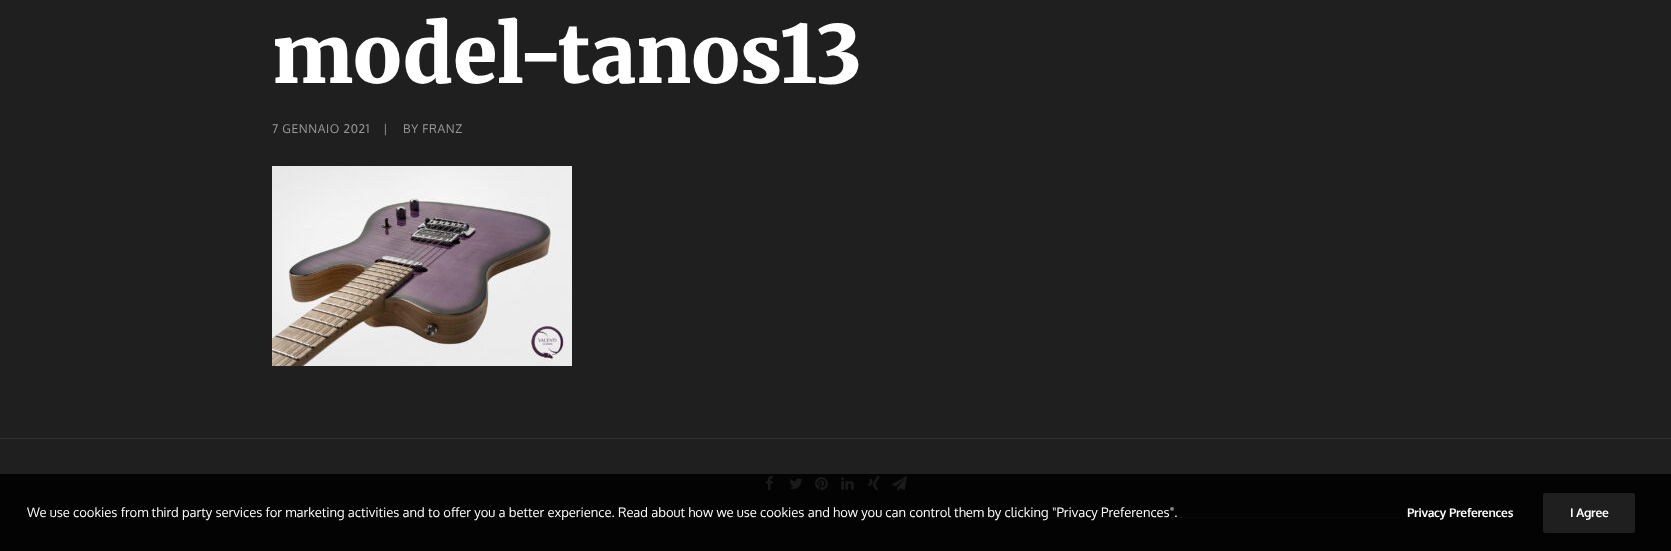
async function draw(canvas) {
  canvas.width = 1671;
  canvas.height = 551;
  const ctx = canvas.getContext('2d');
  ctx.miterLimit = 4;
  ctx.fontKerning = 'normal';
  function label(s, x, y, font, color) {
    ctx.font = font;
    ctx.fillStyle = color;
    ctx.fillText(s, x, y);
  }
  function rect(x, y, w, h, color) {
    ctx.fillStyle = color;
    ctx.fillRect(x, y, w, h);
  }
  function roundedRect(x, y, w, h, r, color) {
    ctx.fillStyle = color;
    ctx.beginPath();
    ctx.roundRect(x, y, w, h, r);
    ctx.fill();
  }
  async function image(src, x, y, w, h) {
    const img = new Image();
    img.src = src;
    await img.decode();
    ctx.drawImage(img, x, y, w, h);
  }

  rect(0, 0, 1671, 551, '#1f1f1f');
  rect(0, 474, 1671, 77, '#030303');
  label('model-tanos13', 272, 83, '900 80px Merriweather', '#fff');
  ctx.letterSpacing = '0.6px';
  label('7 GENNAIO 2021', 272, 133, '12px Oxygen', '#999');
  label('|', 383, 133, '12px Oxygen', '#999');
  label('BY FRANZ', 403, 133, '12px Oxygen', '#999');
  await image('assets/img1.png', 272, 166, 300, 200);
  rect(0, 438, 1671, 1, '#303133');
  rect(272, 517, 1128, 1, '#090909');
  await image('assets/img2.png', 765, 476, 9, 14);
  await image('assets/img3.png', 789, 478, 14, 11);
  await image('assets/img4.png', 815, 477, 13, 13);
  await image('assets/img5.png', 841, 477, 13, 13);
  await image('assets/img6.png', 868, 476, 12, 14);
  await image('assets/img7.png', 892, 476, 15, 15);
  ctx.letterSpacing = '0px';
  label('We use cookies from third party services for marketing activities and to offer you a better experience. Read about how we use cookies and how you can control them by clicking "Privacy Preferences".', 27, 517, '13px Oxygen', '#fff');
  ctx.letterSpacing = '-0.25px';
  label('Privacy Preferences', 1407, 517, 'bold 12px Oxygen', '#fff');
  roundedRect(1543, 493, 92, 40, 2, '#1f1f1f');
  label('I Agree', 1570, 517, 'bold 12px Oxygen', '#fff');
}

draw(document.querySelector('canvas'));
